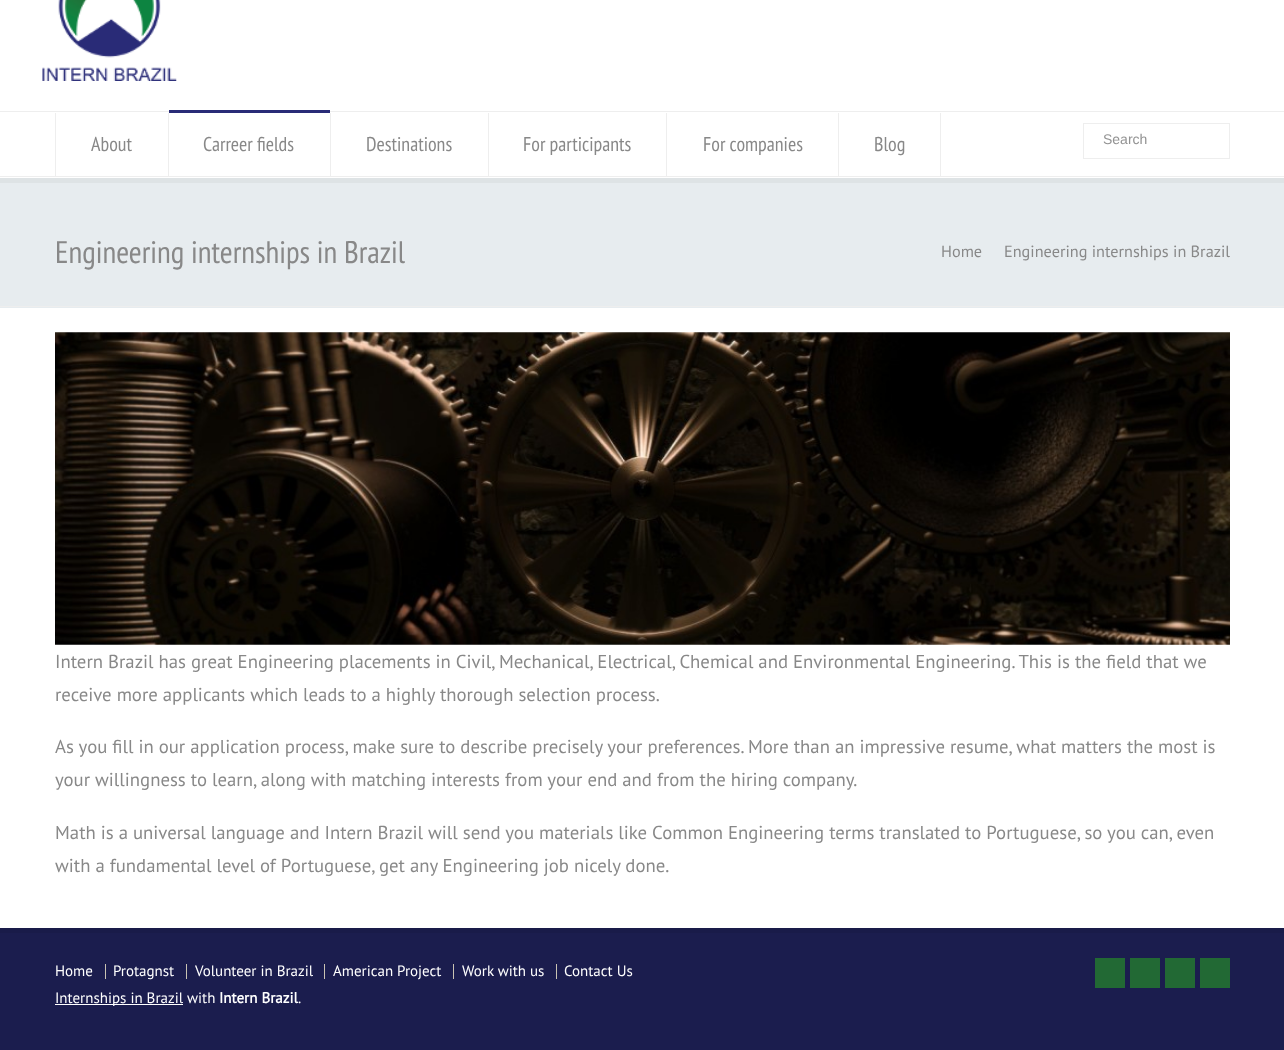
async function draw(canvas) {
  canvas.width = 1284;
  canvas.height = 1050;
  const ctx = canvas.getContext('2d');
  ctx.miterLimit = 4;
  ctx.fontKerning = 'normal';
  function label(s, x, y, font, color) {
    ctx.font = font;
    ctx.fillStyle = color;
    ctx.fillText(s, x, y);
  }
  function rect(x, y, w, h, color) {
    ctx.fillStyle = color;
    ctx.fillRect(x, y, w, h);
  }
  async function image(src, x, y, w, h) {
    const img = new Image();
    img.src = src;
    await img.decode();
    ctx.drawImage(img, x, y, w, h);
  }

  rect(0, 0, 1284, 1050, '#fff');
  await image('assets/img1.png', 42, 0, 135, 81);
  rect(0, 178, 1284, 5, '#dee3e5');
  rect(0, 111, 1284, 1, '#eee');
  rect(0, 176, 1284, 1, '#eee');
  rect(168, 113, 1, 63, '#eee');
  rect(55, 113, 1, 63, '#eee');
  label('About', 91, 151, '20px PT Sans Narrow', '#888');
  rect(330, 113, 1, 63, '#eee');
  rect(169, 110, 161, 3, '#292b77');
  label('Carreer fields', 203, 151, '20px PT Sans Narrow', '#888');
  rect(488, 113, 1, 63, '#eee');
  label('Destinations', 366, 151, '20px PT Sans Narrow', '#888');
  rect(666, 113, 1, 63, '#eee');
  label('For participants', 523, 151, '20px PT Sans Narrow', '#888');
  rect(838, 113, 1, 63, '#eee');
  label('For companies', 703, 151, '20px PT Sans Narrow', '#888');
  rect(940, 113, 1, 63, '#eee');
  label('Blog', 874, 151, '20px PT Sans Narrow', '#888');
  ctx.strokeStyle = '#eee';
  ctx.strokeRect(1083.5, 123.5, 146, 35);
  label('Search', 1103, 144, '14px Liberation Sans', '#929292');
  rect(0, 183, 1284, 125, '#e7ecef');
  rect(0, 306, 1284, 1, '#eee');
  label('Engineering internships in Brazil', 55, 263, '31.25px PT Sans Narrow', '#888');
  label('Home', 941, 257, '16.25px PT Sans', '#888');
  label('Engineering internships in Brazil', 1004, 257, '16.25px PT Sans', '#888');
  await image('assets/img2.png', 55, 332, 1175, 313);
  label('Intern Brazil has great Engineering placements in Civil, Mechanical, Electrical, Chemical and Environmental Engineering. This is the field that we', 55, 668, '18.75px PT Sans', '#888');
  label('receive more applicants which leads to a highly thorough selection process.', 55, 701, '18.75px PT Sans', '#888');
  label('As you fill in our application process, make sure to describe precisely your preferences. More than an impressive resume, what matters the most is', 55, 753, '18.75px PT Sans', '#888');
  label('your willingness to learn, along with matching interests from your end and from the hiring company.', 55, 786, '18.75px PT Sans', '#888');
  label('Math is a universal language and Intern Brazil will send you materials like Common Engineering terms translated to Portuguese, so you can, even', 55, 839, '18.75px PT Sans', '#888');
  label('with a fundamental level of Portuguese, get any Engineering job nicely done.', 55, 872, '18.75px PT Sans', '#888');
  rect(0, 933, 1284, 117, '#1b1d4e');
  rect(0, 928, 1284, 5, '#191b49');
  label('Home', 55, 976, '15px PT Sans', '#fff');
  rect(105, 964, 1, 15, '#c9c3b3');
  label('Protagnst', 113, 976, '15px PT Sans', '#fff');
  rect(186, 964, 1, 15, '#c9c3b3');
  label('Volunteer in Brazil', 195, 976, '15px PT Sans', '#fff');
  rect(324, 964, 1, 15, '#c9c3b3');
  label('American Project', 333, 976, '15px PT Sans', '#fff');
  rect(453, 964, 1, 15, '#c9c3b3');
  label('Work with us', 462, 976, '15px PT Sans', '#fff');
  rect(556, 964, 1, 15, '#c9c3b3');
  label('Contact Us', 564, 976, '15px PT Sans', '#fff');
  rect(55, 1004, 128, 1, '#fff');
  label('Internships in Brazil with', 55, 1003, '15px PT Sans', '#fff');
  label('Intern Brazil', 219, 1003, 'bold 15px PT Sans', '#fff');
  label('.', 298, 1003, '15px PT Sans', '#fff');
  rect(1095, 958, 30, 30, '#226934');
  rect(1130, 958, 30, 30, '#226934');
  rect(1165, 958, 30, 30, '#226934');
  rect(1200, 958, 30, 30, '#226934');
}

draw(document.querySelector('canvas'));
